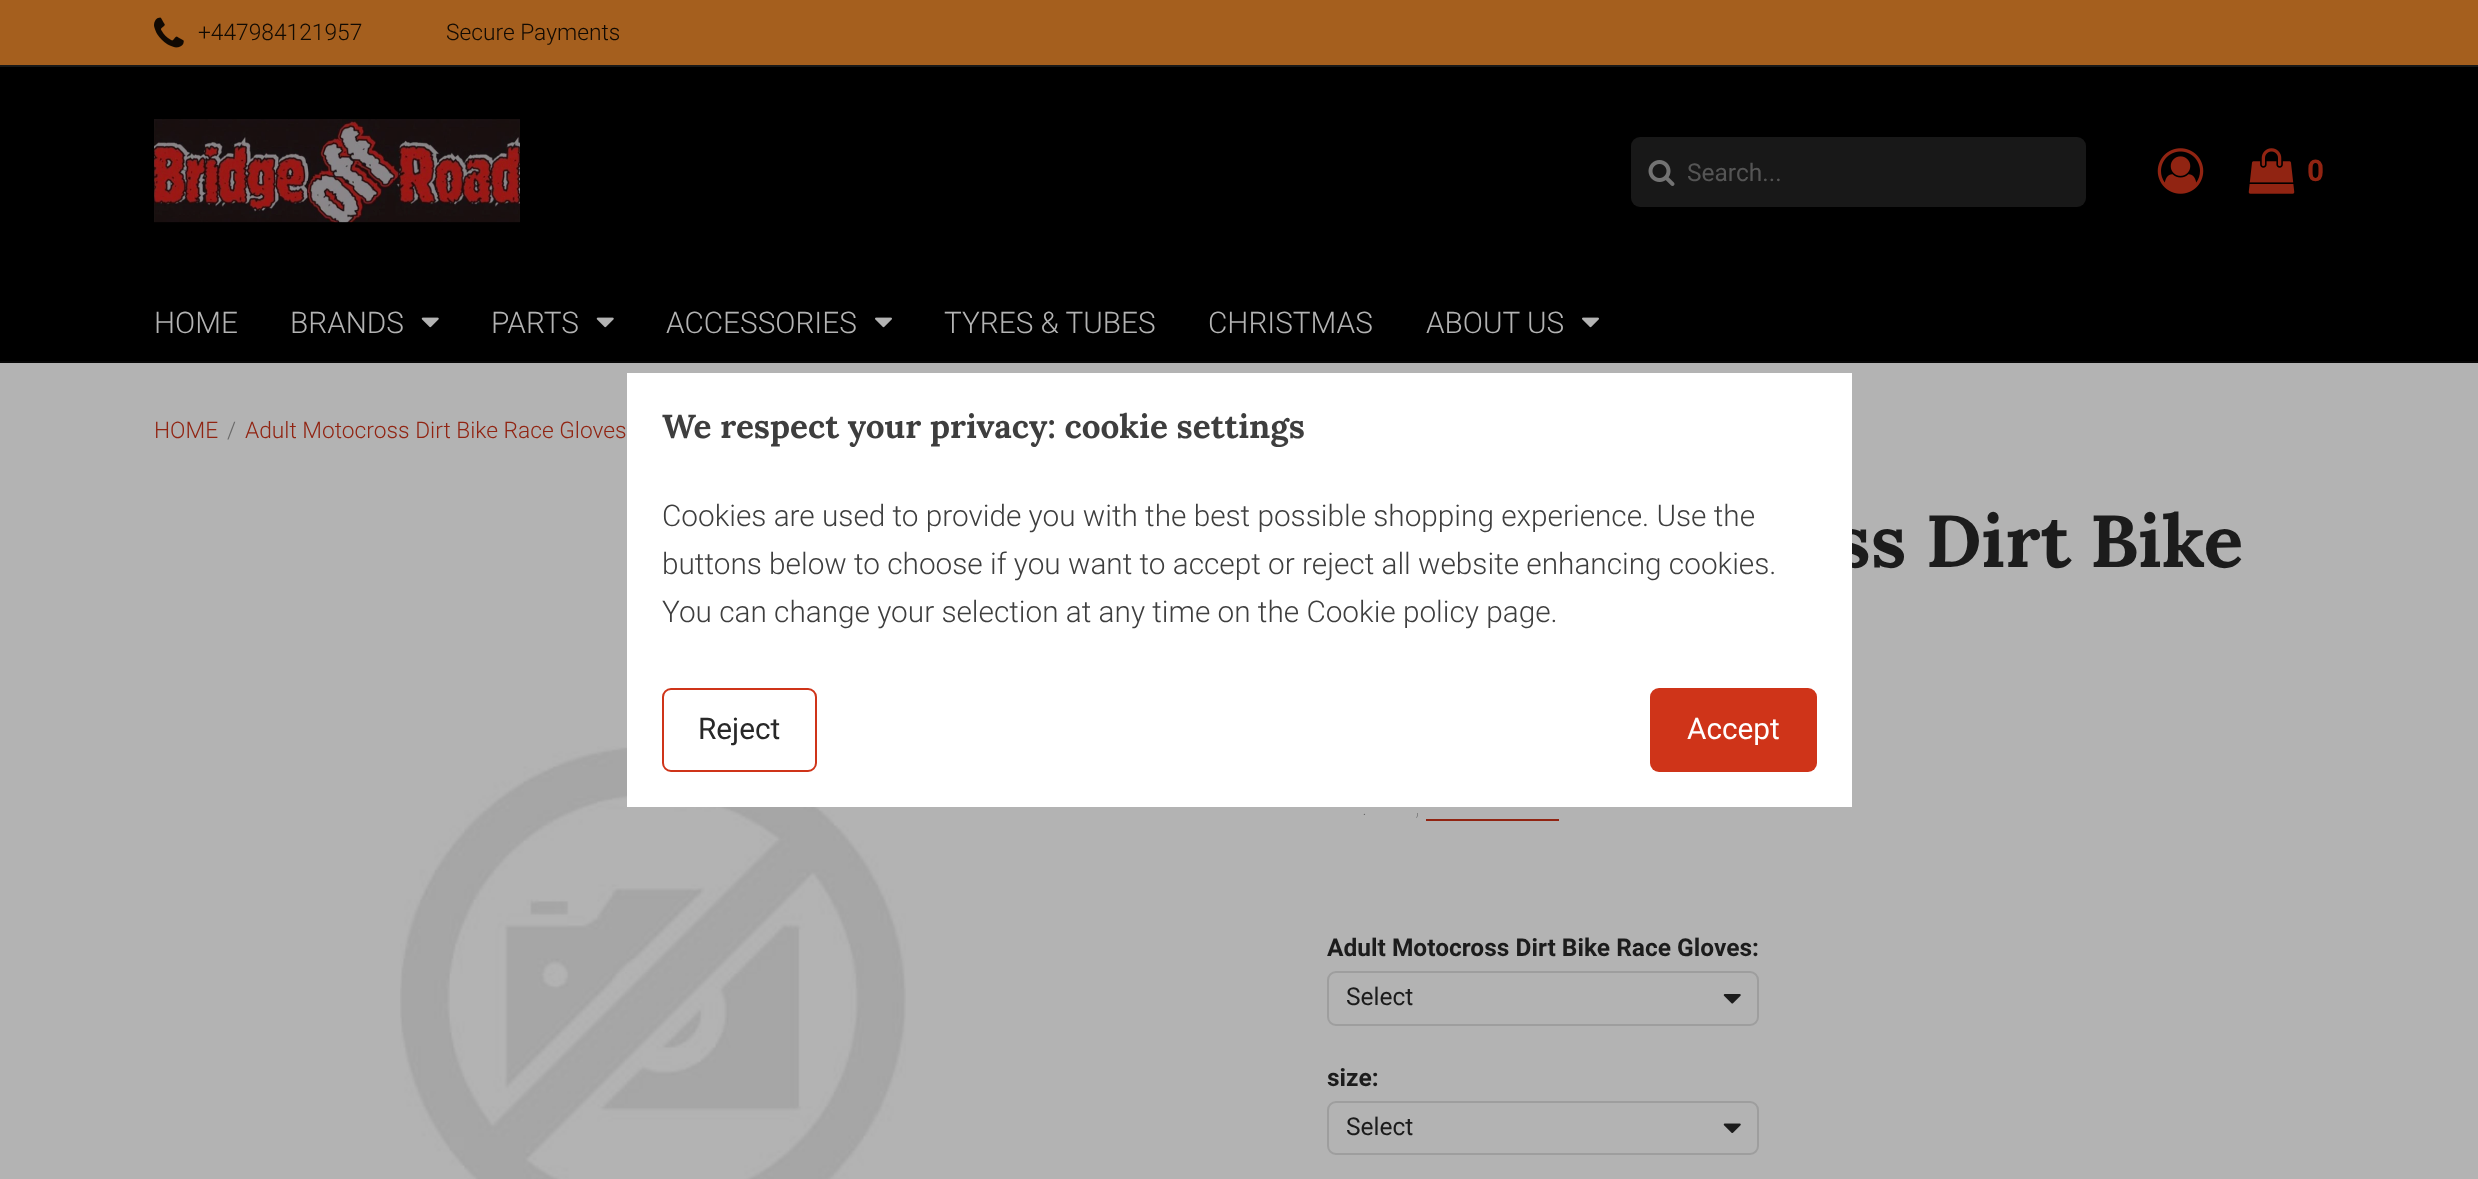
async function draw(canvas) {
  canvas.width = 2478;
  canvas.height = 1179;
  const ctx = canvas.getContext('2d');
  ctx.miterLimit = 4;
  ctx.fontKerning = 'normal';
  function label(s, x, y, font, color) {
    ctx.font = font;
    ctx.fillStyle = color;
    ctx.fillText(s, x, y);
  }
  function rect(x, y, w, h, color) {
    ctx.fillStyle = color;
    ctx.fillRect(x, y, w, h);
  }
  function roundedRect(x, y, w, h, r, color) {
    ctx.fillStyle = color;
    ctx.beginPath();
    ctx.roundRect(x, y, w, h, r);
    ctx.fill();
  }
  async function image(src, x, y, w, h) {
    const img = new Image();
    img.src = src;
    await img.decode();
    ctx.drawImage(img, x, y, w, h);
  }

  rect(0, 0, 2478, 1179, '#b3b3b3');
  rect(0, 0, 2478, 65, '#a55f1e');
  rect(0, 65, 2478, 2, '#181818');
  await image('assets/img1.png', 154, 17, 30, 31);
  label('+447984121957', 198, 40, '300 22.75px Roboto', '#110a03');
  label('Secure Payments', 446, 40, '300 22.75px Roboto', '#110a03');
  rect(0, 67, 2478, 294, '#000');
  rect(0, 361, 2478, 2, '#080808');
  await image('assets/img2.png', 154, 119, 366, 104);
  roundedRect(1631, 137, 455, 70, 9, '#181818');
  await image('assets/img3.png', 1648, 160, 27, 26);
  label('Search...', 1687, 181, '24.5px Roboto', '#555');
  await image('assets/img4.png', 2157, 148, 47, 46);
  await image('assets/img5.png', 2248, 148, 47, 46);
  label('0', 2307, 181, 'bold 29.75px Roboto', '#912412');
  label('HOME', 154, 333, '300 29.75px Roboto', '#b3b3b3');
  label('BRANDS', 290, 333, '300 29.75px Roboto', '#b3b3b3');
  await image('assets/img6.png', 421, 317, 18, 11);
  label('PARTS', 491, 333, '300 29.75px Roboto', '#b3b3b3');
  await image('assets/img6.png', 596, 317, 18, 11);
  label('ACCESSORIES', 666, 333, '300 29.75px Roboto', '#b3b3b3');
  await image('assets/img7.png', 875, 317, 17, 11);
  label('TYRES & TUBES', 944, 333, '300 29.75px Roboto', '#b3b3b3');
  label('CHRISTMAS', 1208, 333, '300 29.75px Roboto', '#b3b3b3');
  label('ABOUT US', 1426, 333, '300 29.75px Roboto', '#b3b3b3');
  await image('assets/img7.png', 1582, 317, 17, 11);
  label('HOME', 154, 438, '300 22.75px Roboto', '#912412');
  label('/', 227, 438, '300 22.75px Roboto', '#6a6a6a');
  label('Adult Motocross Dirt Bike Race Gloves', 245, 438, '300 22.75px Roboto', '#912412');
  await image('assets/img8.png', 400, 746, 506, 433);
  label('ss Dirt Bike', 1835, 567, 'bold 73.5px Lora', '#1c1c1c');
  label('.', 1362, 815, '100 24.5px Roboto', '#6a6a6a');
  label(',', 1415, 815, '100 24.5px Roboto', '#6a6a6a');
  rect(1426, 819, 133, 2, '#912412');
  label('Adult Motocross Dirt Bike Race Gloves:', 1327, 956, 'bold 24.5px Roboto', '#1c1c1c');
  ctx.beginPath();
  ctx.roundRect(1328, 972, 430, 53, 8);
  ctx.strokeStyle = '#9e9e9e';
  ctx.lineWidth = 2;
  ctx.stroke();
  label('Select', 1346, 1005, '24.5px Roboto', '#1c1c1c');
  await image('assets/img9.png', 1723, 994, 18, 10);
  label('size:', 1327, 1086, 'bold 24.5px Roboto', '#1c1c1c');
  ctx.beginPath();
  ctx.roundRect(1328, 1102, 430, 52, 8);
  ctx.stroke();
  label('Select', 1346, 1135, '24.5px Roboto', '#1c1c1c');
  await image('assets/img10.png', 1723, 1123, 18, 10);
  rect(627, 373, 1225, 434, '#fff');
  label('We respect your privacy: cookie settings', 662, 438, 'bold 33.3px Lora', '#3e3e3e');
  label('Cookies are used to provide you with the best possible shopping experience. Use the', 662, 526, '300 29.75px Roboto', '#3e3e3e');
  label('buttons below to choose if you want to accept or reject all website enhancing cookies.', 662, 574, '300 29.75px Roboto', '#3e3e3e');
  label('You can change your selection at any time on the Cookie policy page.', 662, 622, '300 29.75px Roboto', '#3e3e3e');
  ctx.beginPath();
  ctx.roundRect(663, 689, 153, 82, 8);
  ctx.strokeStyle = '#cf3419';
  ctx.stroke();
  label('Reject', 698, 739, '29.75px Roboto', '#282828');
  roundedRect(1650, 688, 167, 84, 9, '#cf3419');
  label('Accept', 1687, 739, '29.75px Roboto', '#fff');
}

draw(document.querySelector('canvas'));
